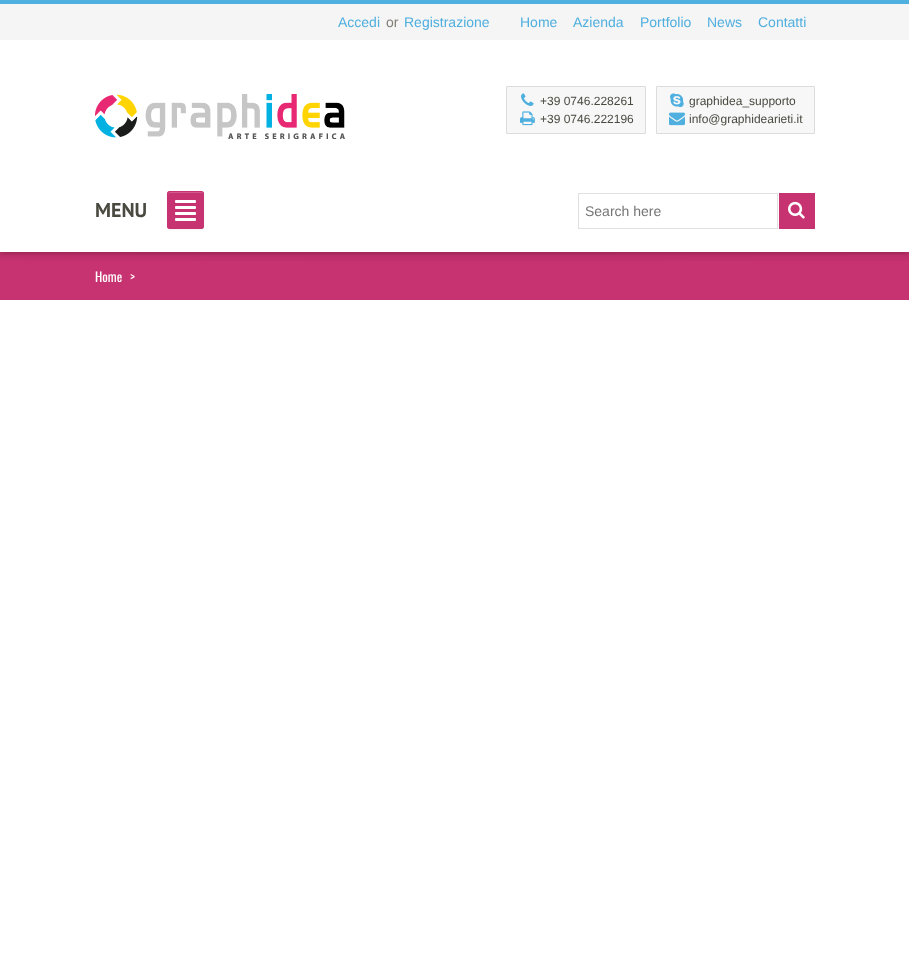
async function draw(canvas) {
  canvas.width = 909;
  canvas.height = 977;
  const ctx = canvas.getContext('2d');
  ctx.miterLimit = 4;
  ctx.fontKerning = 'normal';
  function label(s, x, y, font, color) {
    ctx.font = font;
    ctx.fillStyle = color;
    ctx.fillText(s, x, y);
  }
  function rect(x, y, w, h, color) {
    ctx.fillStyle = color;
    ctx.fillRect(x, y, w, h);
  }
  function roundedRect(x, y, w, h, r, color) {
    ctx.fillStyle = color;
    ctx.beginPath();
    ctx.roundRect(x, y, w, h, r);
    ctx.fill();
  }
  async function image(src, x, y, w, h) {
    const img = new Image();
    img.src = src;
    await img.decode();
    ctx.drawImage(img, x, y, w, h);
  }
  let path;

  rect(0, 0, 909, 977, '#fff');
  rect(0, 252, 909, 48, '#c73270');
  ctx.save();
  ctx.beginPath();
  ctx.rect(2, 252, 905, 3);
  ctx.clip();
  ctx.fillStyle = '#0000001a';
  ctx.filter = 'blur(1.5px)';
  ctx.beginPath();
  ctx.rect(3, 8, 903, 246);
  ctx.fill();
  ctx.filter = 'none';
  ctx.restore();
  rect(0, 4, 909, 36, '#f5f5f5');
  rect(0, 0, 909, 4, '#4fafdf');
  label('Accedi', 338, 27, '14px Liberation Sans', '#4fafdf');
  label('or', 386, 27, '14px Liberation Sans', '#7f7d74');
  label('Registrazione', 404, 27, '14px Liberation Sans', '#4fafdf');
  label('Home', 520, 27, '14px Liberation Sans', '#4fafdf');
  label('Azienda', 573, 27, '14px Liberation Sans', '#4fafdf');
  label('Portfolio', 640, 27, '14px Liberation Sans', '#4fafdf');
  label('News', 707, 27, '14px Liberation Sans', '#4fafdf');
  label('Contatti', 758, 27, '14px Liberation Sans', '#4fafdf');
  await image('assets/img1.png', 95, 94, 250, 45);
  ctx.fillStyle = '#f7f7f7';
  ctx.beginPath();
  ctx.rect(506.5, 86.5, 139, 47);
  ctx.fill();
  ctx.strokeStyle = '#dcdcdc';
  ctx.stroke();
  await image('assets/img2.png', 521, 93, 13, 13);
  label('+39 0746.228261', 540, 105, '12px Liberation Sans', '#494940');
  await image('assets/img3.png', 520, 111, 15, 15);
  label('+39 0746.222196', 540, 123, '12px Liberation Sans', '#494940');
  ctx.fillStyle = '#f7f7f7';
  ctx.beginPath();
  ctx.rect(656.5, 86.5, 158, 47);
  ctx.fill();
  ctx.stroke();
  await image('assets/img4.png', 670, 93, 14, 15);
  label('graphidea_supporto', 689, 105, '12px Liberation Sans', '#494940');
  await image('assets/img5.png', 669, 112, 16, 14);
  label('info@graphidearieti.it', 689, 123, '12px Liberation Sans', '#494940');
  label('MENU', 95, 217, 'bold 20px PT Sans', '#494940');
  ctx.fillStyle = '#0000000d';
  ctx.filter = 'blur(1px)';
  ctx.beginPath();
  ctx.roundRect(167, 192, 37, 38, 3);
  ctx.fill();
  ctx.filter = 'none';
  roundedRect(167, 191, 37, 38, 3, '#c73270');
  ctx.fillStyle = '#d25b8d';
  path = new Path2D('M170 193H201C202 193 203 194 203 195C203 190.5 199.5 192 196 192H175C171.5 192 168 190.5 168 195C168 194 169 193 170 193Z');
  ctx.fill(path);
  ctx.beginPath();
  ctx.roundRect(167.5, 191.5, 36, 37, 2.5);
  ctx.strokeStyle = '#c73270';
  ctx.stroke();
  roundedRect(175, 200, 21, 3, 1, '#fff');
  roundedRect(175, 206, 21, 3, 1, '#fff');
  roundedRect(175, 212, 21, 3, 1, '#fff');
  roundedRect(175, 218, 21, 3, 1, '#fff');
  ctx.strokeStyle = '#e0e0e0';
  ctx.strokeRect(578.5, 193.5, 199, 35);
  label('Search here', 585, 216, '14px Liberation Sans', '#757575');
  rect(779, 193, 36, 36, '#c73270');
  await image('assets/img6.png', 788, 201, 17, 18);
  await image('assets/img7.png', 0, 252, 909, 9);
  label('Home', 95, 282, '13px Oswald', '#fff');
  label('>', 130, 282, '13px Oswald', '#fff');
}

draw(document.querySelector('canvas'));
